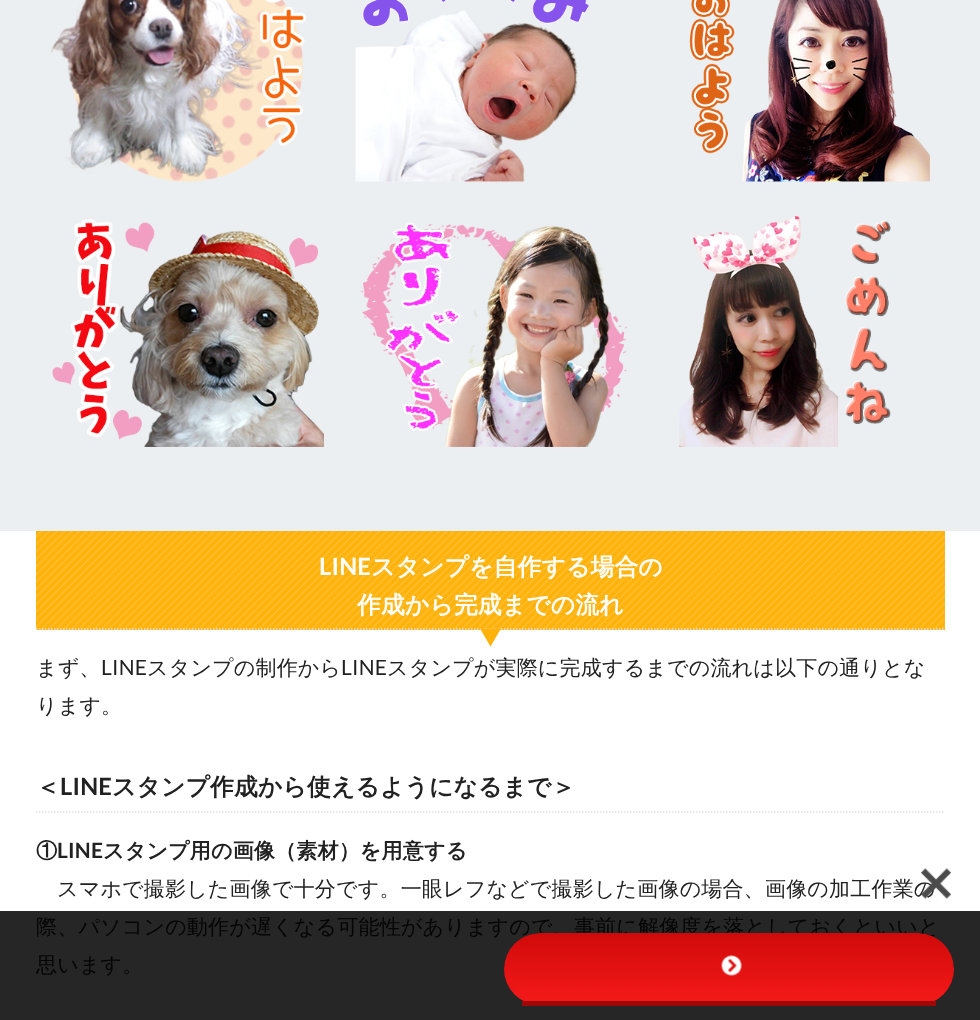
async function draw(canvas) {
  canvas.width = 980;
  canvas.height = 1020;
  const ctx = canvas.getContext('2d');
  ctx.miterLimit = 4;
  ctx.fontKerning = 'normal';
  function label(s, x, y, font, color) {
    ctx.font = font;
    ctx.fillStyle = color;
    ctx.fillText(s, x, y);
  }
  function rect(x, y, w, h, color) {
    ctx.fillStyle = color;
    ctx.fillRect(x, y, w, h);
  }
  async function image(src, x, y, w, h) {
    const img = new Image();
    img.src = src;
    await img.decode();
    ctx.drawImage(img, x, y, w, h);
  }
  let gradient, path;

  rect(0, 0, 980, 1020, '#fff');
  rect(0, 911, 980, 109, '#262626');
  rect(0, 0, 980, 531, '#eceff1');
  await image('assets/img1.png', 51, 0, 255, 182);
  await image('assets/img2.png', 355, 0, 235, 182);
  await image('assets/img3.png', 689, 0, 241, 182);
  await image('assets/img4.png', 52, 219, 272, 228);
  await image('assets/img5.png', 360, 222, 267, 225);
  await image('assets/img6.png', 679, 215, 212, 232);
  await image('assets/img7.png', 36, 531, 909, 99);
  path = new Path2D('M36 629H945');
  ctx.strokeStyle = '#e0e0e0';
  ctx.lineWidth = 1.5;
  ctx.setLineDash([1.5, 1.5]);
  ctx.stroke(path);
  ctx.letterSpacing = '0.2px';
  label('LINE', 319, 575, 'bold 23.75px Lato', '#fff');
  label('スタンプを自作する場合の', 371, 575, 'bold 23.75px WenQuanYi Zen Hei', '#fff');
  label('作成から完成までの流れ', 357, 613, 'bold 23.75px WenQuanYi Zen Hei', '#fff');
  ctx.fillStyle = '#feb20a';
  path = new Path2D('M480 628.5H501L490.5 646.5Z');
  ctx.fill(path);
  label('まず、', 36, 675, '500 21px WenQuanYi Zen Hei', '#212121');
  label('LINE', 101, 675, '21px Lato', '#212121');
  label('スタンプの制作から', 147, 675, '500 21px WenQuanYi Zen Hei', '#212121');
  label('LINE', 341, 675, '21px Lato', '#212121');
  label('スタンプが実際に完成するまでの流れは以下の通りとな', 387, 675, '500 21px WenQuanYi Zen Hei', '#212121');
  label('ります。', 36, 713, '500 21px WenQuanYi Zen Hei', '#212121');
  path = new Path2D('M36 812H945');
  ctx.stroke(path);
  label('＜', 36, 795, 'bold 23.75px WenQuanYi Zen Hei', '#212121');
  label('LINE', 60, 795, 'bold 23.75px Lato', '#212121');
  label('スタンプ作成から使えるようになるまで＞', 112, 795, 'bold 23.75px WenQuanYi Zen Hei', '#212121');
  label('①', 36, 858, 'bold 21px WenQuanYi Zen Hei', '#212121');
  label('LINE', 57, 858, 'bold 21px Lato', '#212121');
  label('スタンプ用の画像（素材）を用意する', 103, 858, 'bold 21px WenQuanYi Zen Hei', '#212121');
  label('スマホで撮影した画像で十分です。一眼レフなどで撮影した画像の場合、画像の加工作業の', 57, 896, '500 21px WenQuanYi Zen Hei', '#212121');
  label('際、パソコンの動作が遅くなる可能性がありますので、事前に解像度を落としておくといいと', 36, 934, '500 21px WenQuanYi Zen Hei', '#050505');
  label('思います。', 36, 972, '500 21px WenQuanYi Zen Hei', '#050505');
  await image('assets/img8.png', 921, 868, 30, 31);
  ctx.save();
  ctx.beginPath();
  ctx.roundRect(504, 933, 450, 72, 36);
  ctx.clip();
  gradient = ctx.createLinearGradient(729, 933, 729, 1001);
  gradient.addColorStop(0, '#d00a0a');
  gradient.addColorStop(1, '#f41919');
  ctx.fillStyle = gradient;
  ctx.beginPath();
  ctx.roundRect(504, 933, 450, 68, [36, 36, 0, 0]);
  ctx.fill();
  ctx.restore();
  rect(522, 1001, 414, 5, '#9f0808');
  await image('assets/img9.png', 721, 955, 21, 21);
}

draw(document.querySelector('canvas'));
